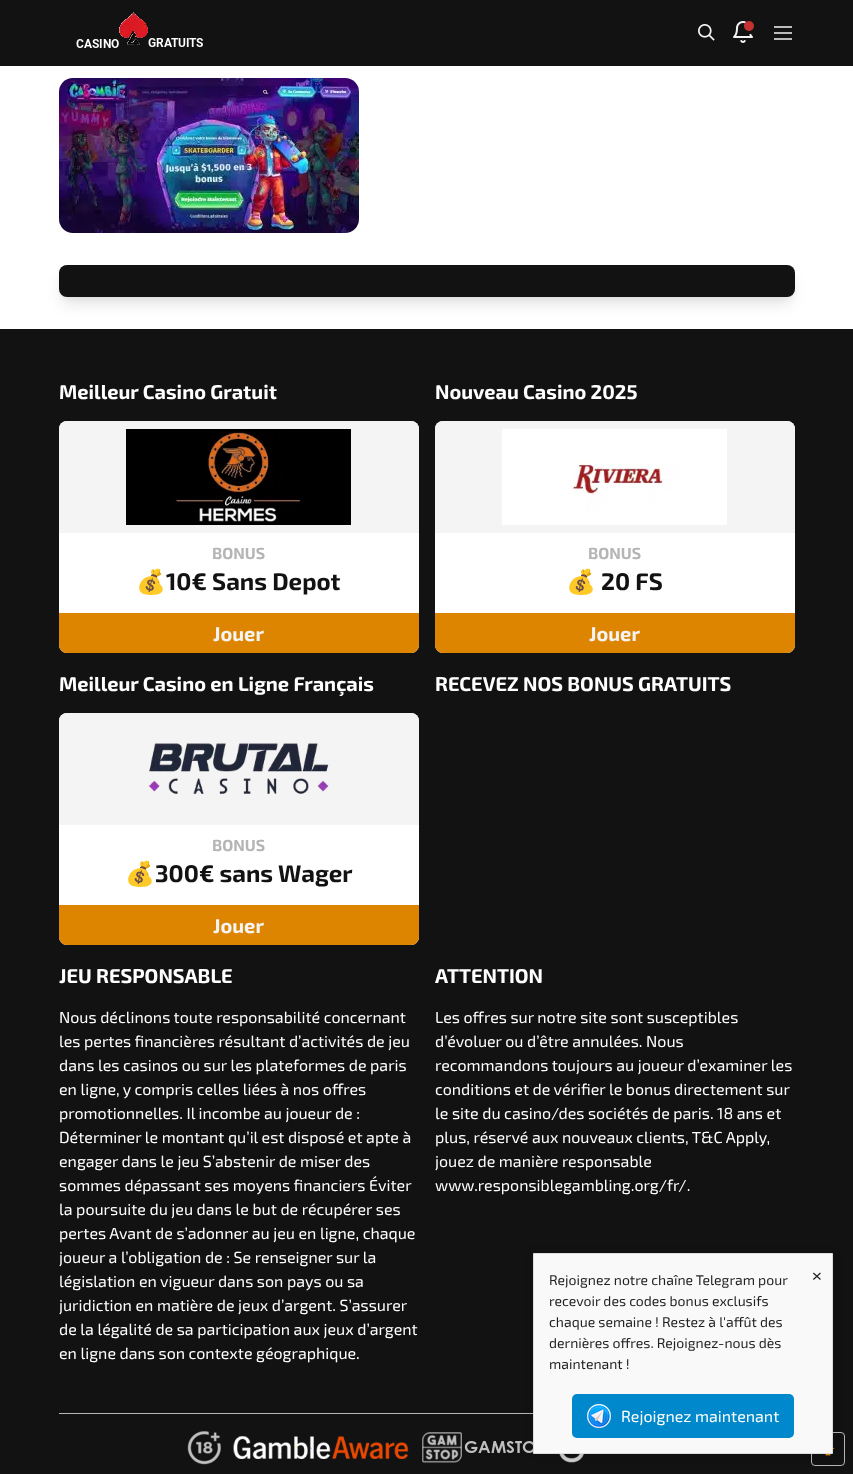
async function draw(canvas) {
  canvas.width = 853;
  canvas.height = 1474;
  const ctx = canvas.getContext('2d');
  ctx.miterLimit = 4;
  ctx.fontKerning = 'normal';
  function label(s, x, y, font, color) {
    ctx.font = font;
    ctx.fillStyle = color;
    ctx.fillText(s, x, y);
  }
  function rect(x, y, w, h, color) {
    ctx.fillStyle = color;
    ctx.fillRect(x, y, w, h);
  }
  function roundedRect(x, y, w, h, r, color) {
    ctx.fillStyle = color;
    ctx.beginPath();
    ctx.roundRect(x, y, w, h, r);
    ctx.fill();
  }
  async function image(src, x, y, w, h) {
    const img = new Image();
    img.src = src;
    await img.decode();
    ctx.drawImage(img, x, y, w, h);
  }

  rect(0, 0, 853, 1474, '#fff');
  rect(0, 0, 853, 66, '#121212');
  await image('assets/img1.png', 76, 12, 127, 36);
  await image('assets/img2.png', 698, 24, 17, 17);
  await image('assets/img3.png', 733, 21, 21, 22);
  await image('assets/img4.png', 774, 26, 18, 14);
  await image('assets/img5.png', 59, 78, 300, 155);
  ctx.fillStyle = '#0000000d';
  ctx.filter = 'blur(3px)';
  ctx.beginPath();
  ctx.roundRect(61, 271, 732, 28, 6);
  ctx.fill();
  ctx.filter = 'none';
  ctx.fillStyle = '#0000001a';
  ctx.filter = 'blur(7.5px)';
  ctx.beginPath();
  ctx.roundRect(62, 278, 730, 26, 5);
  ctx.fill();
  ctx.filter = 'none';
  roundedRect(59, 265, 736, 32, 8, '#121212');
  rect(0, 329, 853, 1145, '#121212');
  label('Meilleur Casino Gratuit', 59, 399, 'bold 20px "Exo 2"', '#fff');
  roundedRect(59, 421, 360, 232, 8, '#fff');
  ctx.fillStyle = '#f4f4f4';
  ctx.beginPath();
  ctx.roundRect(59, 421, 360, 112, [8, 8, 0, 0]);
  ctx.fill();
  await image('assets/img6.png', 126, 429, 225, 96);
  label('BONUS', 212, 559, 'bold 16px "Exo 2"', '#b5b5b5');
  label('💰', 136, 590, 'bold 24px Noto Color Emoji', '#121212');
  label('10€ Sans Depot', 166, 590, 'bold 24px "Exo 2"', '#121212');
  ctx.fillStyle = '#dd8500';
  ctx.beginPath();
  ctx.roundRect(60, 614, 358, 38, [0, 0, 7, 7]);
  ctx.fill();
  ctx.strokeStyle = '#dd8500';
  ctx.lineWidth = 2;
  ctx.stroke();
  label('Jouer', 213, 641, 'bold 20px "Exo 2"', '#f4f4f4');
  label('Nouveau Casino 2025', 435, 399, 'bold 20px "Exo 2"', '#fff');
  roundedRect(435, 421, 360, 232, 8, '#fff');
  ctx.fillStyle = '#f4f4f4';
  ctx.beginPath();
  ctx.roundRect(435, 421, 360, 112, [8, 8, 0, 0]);
  ctx.fill();
  await image('assets/img7.png', 502, 429, 225, 96);
  label('BONUS', 588, 559, 'bold 16px "Exo 2"', '#b5b5b5');
  label('💰', 566, 590, 'bold 24px Noto Color Emoji', '#121212');
  label('20 FS', 601, 590, 'bold 24px "Exo 2"', '#121212');
  ctx.fillStyle = '#dd8500';
  ctx.beginPath();
  ctx.roundRect(436, 614, 358, 38, [0, 0, 7, 7]);
  ctx.fill();
  ctx.stroke();
  label('Jouer', 589, 641, 'bold 20px "Exo 2"', '#f4f4f4');
  label('Meilleur Casino en Ligne Français', 59, 691, 'bold 20px "Exo 2"', '#fff');
  roundedRect(59, 713, 360, 232, 8, '#fff');
  ctx.fillStyle = '#f4f4f4';
  ctx.beginPath();
  ctx.roundRect(59, 713, 360, 112, [8, 8, 0, 0]);
  ctx.fill();
  await image('assets/img8.png', 148, 743, 181, 51);
  label('BONUS', 212, 851, 'bold 16px "Exo 2"', '#b5b5b5');
  label('💰', 125, 882, 'bold 24px Noto Color Emoji', '#121212');
  label('300€ sans Wager', 155, 882, 'bold 24px "Exo 2"', '#121212');
  ctx.fillStyle = '#dd8500';
  ctx.beginPath();
  ctx.roundRect(60, 906, 358, 38, [0, 0, 7, 7]);
  ctx.fill();
  ctx.stroke();
  label('Jouer', 213, 933, 'bold 20px "Exo 2"', '#f4f4f4');
  label('RECEVEZ NOS BONUS GRATUITS', 435, 691, 'bold 20px "Exo 2"', '#fff');
  label('JEU RESPONSABLE', 59, 983, 'bold 20px "Exo 2"', '#fff');
  label('Nous déclinons toute responsabilité concernant', 59, 1023, '16px "Exo 2"', '#fff');
  label('les pertes financières résultant d’activités de jeu', 59, 1047, '16px "Exo 2"', '#fff');
  label('dans les casinos ou sur les plateformes de paris', 59, 1071, '16px "Exo 2"', '#fff');
  label('en ligne, y compris celles liées à nos offres', 59, 1095, '16px "Exo 2"', '#fff');
  label('promotionnelles. Il incombe au joueur de :', 59, 1119, '16px "Exo 2"', '#fff');
  label('Déterminer le montant qu’il est disposé et apte à', 59, 1143, '16px "Exo 2"', '#fff');
  label('engager dans le jeu S’abstenir de miser des', 59, 1167, '16px "Exo 2"', '#fff');
  label('sommes dépassant ses moyens financiers Éviter', 59, 1191, '16px "Exo 2"', '#fff');
  label('la poursuite du jeu dans le but de récupérer ses', 59, 1215, '16px "Exo 2"', '#fff');
  label('pertes Avant de s’adonner au jeu en ligne, chaque', 59, 1239, '16px "Exo 2"', '#fff');
  label('joueur a l’obligation de : Se renseigner sur la', 59, 1263, '16px "Exo 2"', '#fff');
  label('législation en vigueur dans son pays ou sa', 59, 1287, '16px "Exo 2"', '#fff');
  label('juridiction en matière de jeux d’argent. S’assurer', 59, 1311, '16px "Exo 2"', '#fff');
  label('de la légalité de sa participation aux jeux d’argent', 59, 1335, '16px "Exo 2"', '#fff');
  label('en ligne dans son contexte géographique.', 59, 1359, '16px "Exo 2"', '#fff');
  label('ATTENTION', 435, 983, 'bold 20px "Exo 2"', '#fff');
  label('Les offres sur notre site sont susceptibles', 435, 1023, '16px "Exo 2"', '#fff');
  label('d’évoluer ou d’être annulées. Nous', 435, 1047, '16px "Exo 2"', '#fff');
  label('recommandons toujours au joueur d’examiner les', 435, 1071, '16px "Exo 2"', '#fff');
  label('conditions et de vérifier le bonus directement sur', 435, 1095, '16px "Exo 2"', '#fff');
  label('le site du casino/des sociétés de paris. 18 ans et', 435, 1119, '16px "Exo 2"', '#fff');
  label('plus, réservé aux nouveaux clients, T&C Apply,', 435, 1143, '16px "Exo 2"', '#fff');
  label('jouez de manière responsable', 435, 1167, '16px "Exo 2"', '#fff');
  label('www.responsiblegambling.org/fr/.', 435, 1191, '16px "Exo 2"', '#fff');
  rect(59, 1413, 474, 1, '#b5b5b5');
  await image('assets/img9.png', 187, 1431, 34, 34);
  await image('assets/img10.png', 233, 1436, 176, 23);
  await image('assets/img11.png', 422, 1432, 111, 31);
  await image('assets/img12.png', 559, 1454, 25, 9);
  ctx.beginPath();
  ctx.roundRect(811.5, 1432.5, 33, 33, 3.5);
  ctx.strokeStyle = '#b5b5b5';
  ctx.lineWidth = 1;
  ctx.stroke();
  await image('assets/img14.png', 825, 1447, 10, 9);
  ctx.fillStyle = '#0000001a';
  ctx.filter = 'blur(5px)';
  ctx.beginPath();
  ctx.rect(533, 1253, 300, 201);
  ctx.fill();
  ctx.filter = 'none';
  ctx.fillStyle = '#f9f9f9';
  ctx.beginPath();
  ctx.rect(533.5, 1253.5, 299, 200);
  ctx.fill();
  ctx.strokeStyle = '#ddd';
  ctx.stroke();
  label('Rejoignez notre chaîne Telegram pour', 549, 1285, '14px "Exo 2"', '#1f1f1f');
  label('recevoir des codes bonus exclusifs', 549, 1306, '14px "Exo 2"', '#1f1f1f');
  label('chaque semaine ! Restez à l\'affût des', 549, 1327, '14px "Exo 2"', '#1f1f1f');
  label('dernières offres. Rejoignez-nous dès', 549, 1348, '14px "Exo 2"', '#1f1f1f');
  label('maintenant !', 549, 1369, '14px "Exo 2"', '#1f1f1f');
  label('×', 812, 1282, '20px "Exo 2"', '#1f1f1f');
  roundedRect(572, 1394, 222, 44, 5, '#08c');
  await image('assets/img13.png', 587, 1404, 24, 24);
  label('Rejoignez maintenant', 621, 1422, '16px "Exo 2"', '#fff');
}

draw(document.querySelector('canvas'));
